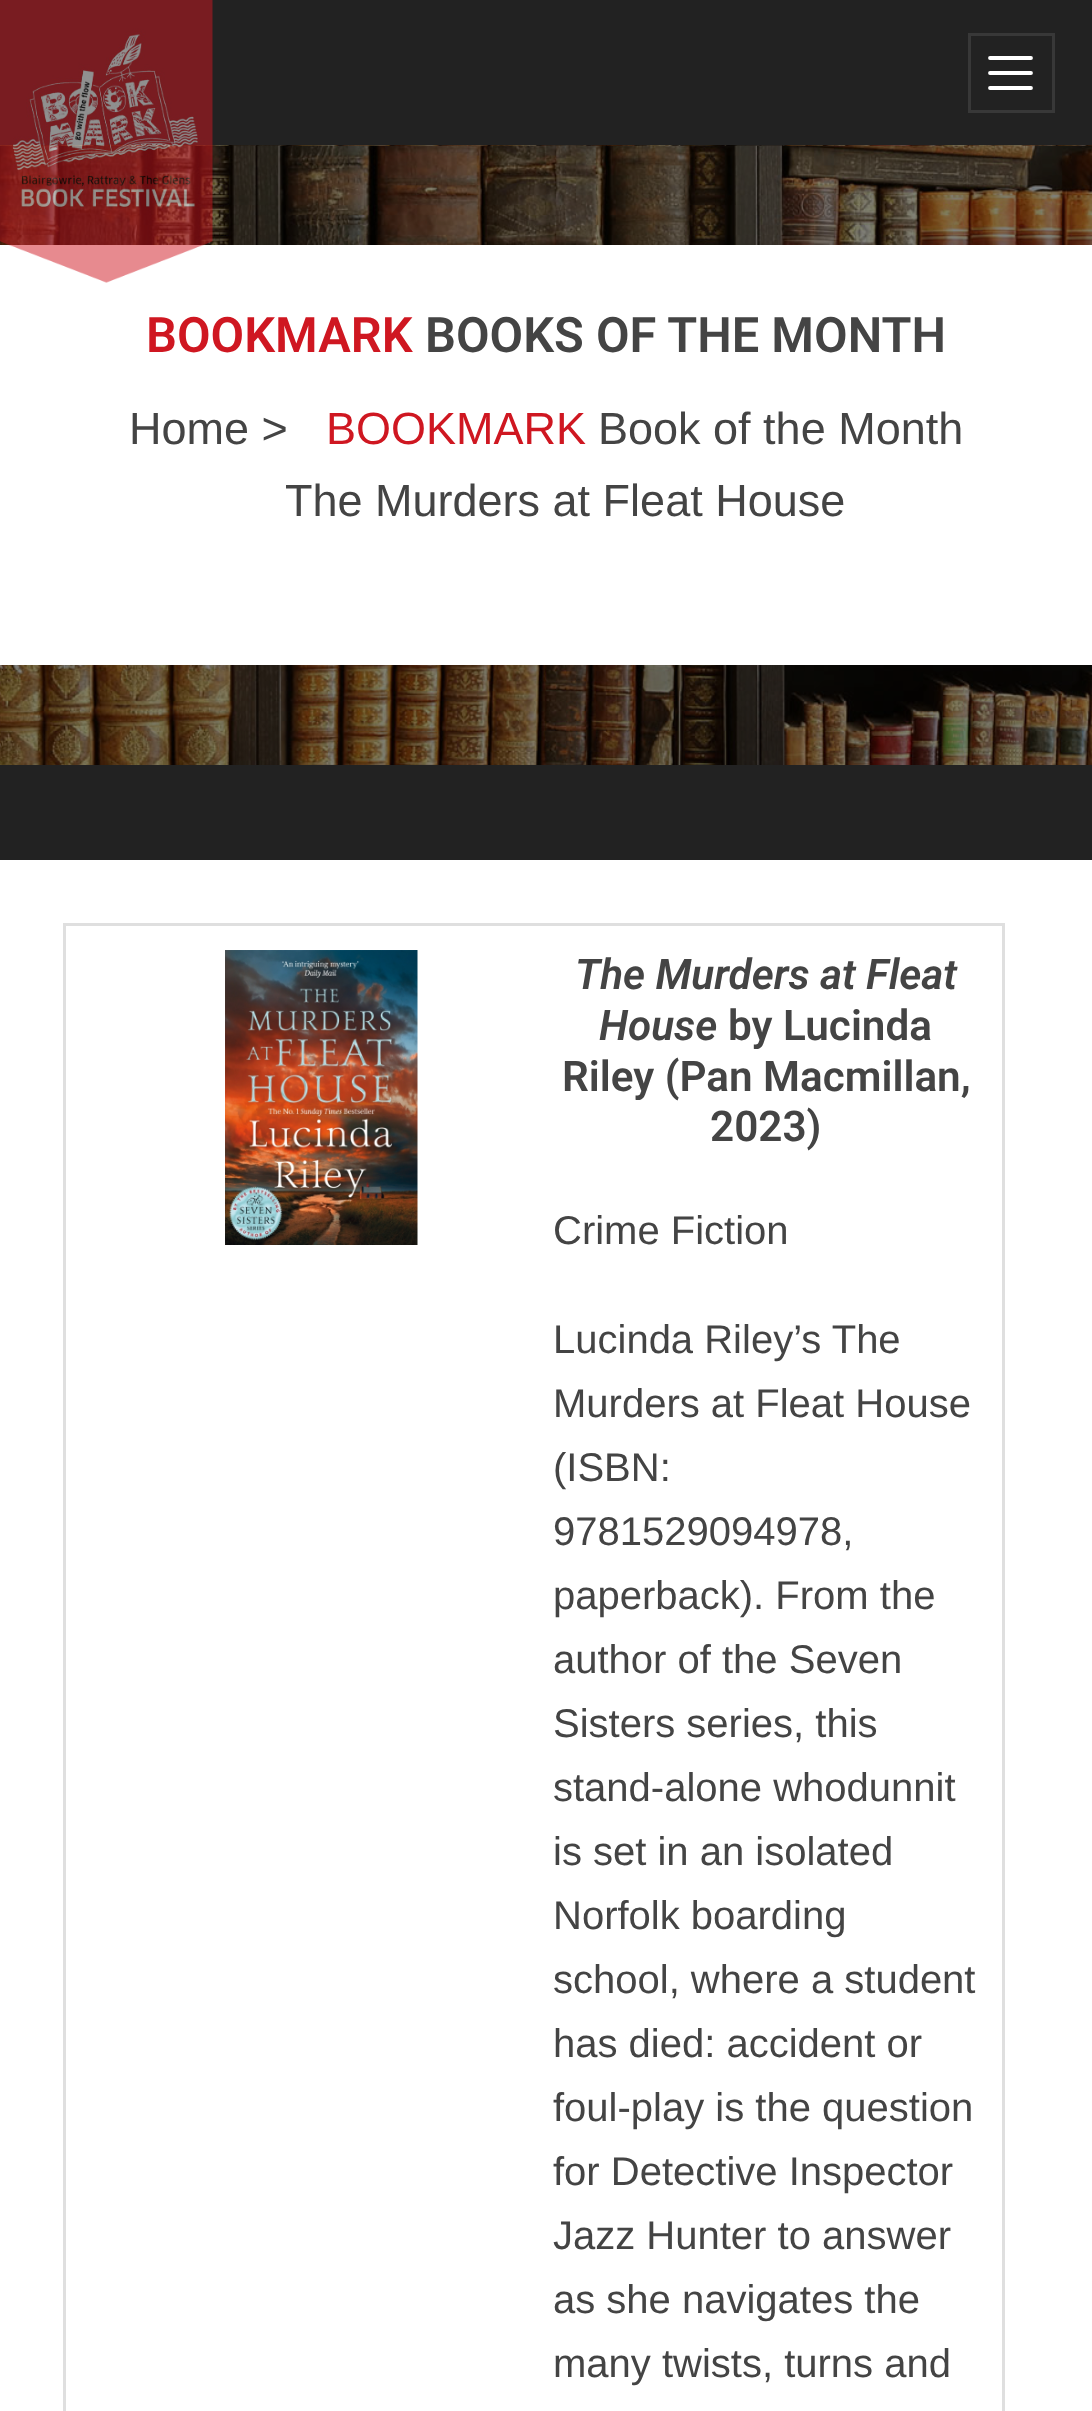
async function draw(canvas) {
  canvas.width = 1092;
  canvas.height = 2411;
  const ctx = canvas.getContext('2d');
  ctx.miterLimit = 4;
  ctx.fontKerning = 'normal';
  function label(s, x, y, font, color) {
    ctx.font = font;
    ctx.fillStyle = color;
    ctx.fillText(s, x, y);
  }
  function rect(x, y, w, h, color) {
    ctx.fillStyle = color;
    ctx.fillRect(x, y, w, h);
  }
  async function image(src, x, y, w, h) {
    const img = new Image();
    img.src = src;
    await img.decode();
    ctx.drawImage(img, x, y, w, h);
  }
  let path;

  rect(0, 0, 1092, 2411, '#222');
  await image('assets/img2.png', 0, 145, 1092, 620);
  rect(0, 245, 1092, 420, '#fff');
  await image('assets/img1.png', 0, 0, 213, 283);
  ctx.strokeStyle = '#383838';
  ctx.lineWidth = 3;
  ctx.strokeRect(969.5, 34.5, 84, 77);
  path = new Path2D('M990 58H1031M990 73H1031M990 88H1031');
  ctx.strokeStyle = '#fff';
  ctx.lineWidth = 3.8;
  ctx.lineCap = 'round';
  ctx.stroke(path);
  label('BOOKMARK', 146, 352, '600 48.75px Roboto', '#cf1721');
  label('BOOKS OF THE MONTH', 425, 352, '600 48.75px Roboto', '#444');
  label('Home >', 129, 444, '45px Liberation Sans', '#444');
  label('BOOKMARK', 326, 444, '45px Liberation Sans', '#cf1721');
  label('Book of the Month', 598, 444, '45px Liberation Sans', '#444');
  label('The Murders at Fleat House', 285, 516, '45px Liberation Sans', '#444');
  rect(0, 860, 1092, 1551, '#fff');
  ctx.strokeStyle = '#dfdfdf';
  ctx.lineWidth = 3;
  ctx.strokeRect(64.5, 924.5, 939, 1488);
  await image('assets/img3.png', 225, 950, 193, 295);
  label('The Murders at Fleat', 575, 989, 'italic 600 42.25px Roboto', '#444');
  label('House', 599, 1040, 'italic 600 42.25px Roboto', '#444');
  label('by Lucinda', 728, 1040, '600 42.25px Roboto', '#444');
  label('Riley (Pan Macmillan,', 562, 1091, '600 42.25px Roboto', '#444');
  label('2023)', 710, 1141, '600 42.25px Roboto', '#444');
  label('Crime Fiction', 553, 1244, '40px Liberation Sans', '#444');
  label('Lucinda Riley’s The', 553, 1353, '40px Liberation Sans', '#444');
  label('Murders at Fleat House', 553, 1417, '40px Liberation Sans', '#444');
  label('(ISBN:', 553, 1481, '40px Liberation Sans', '#444');
  label('9781529094978,', 553, 1545, '40px Liberation Sans', '#444');
  label('paperback). From the', 553, 1609, '40px Liberation Sans', '#444');
  label('author of the Seven', 553, 1673, '40px Liberation Sans', '#444');
  label('Sisters series, this', 553, 1737, '40px Liberation Sans', '#444');
  label('stand-alone whodunnit', 553, 1801, '40px Liberation Sans', '#444');
  label('is set in an isolated', 553, 1865, '40px Liberation Sans', '#444');
  label('Norfolk boarding', 553, 1929, '40px Liberation Sans', '#444');
  label('school, where a student', 553, 1993, '40px Liberation Sans', '#444');
  label('has died: accident or', 553, 2057, '40px Liberation Sans', '#444');
  label('foul-play is the question', 553, 2121, '40px Liberation Sans', '#444');
  label('for Detective Inspector', 553, 2185, '40px Liberation Sans', '#444');
  label('Jazz Hunter to answer', 553, 2249, '40px Liberation Sans', '#444');
  label('as she navigates the', 553, 2313, '40px Liberation Sans', '#444');
  label('many twists, turns and', 553, 2377, '40px Liberation Sans', '#444');
}

draw(document.querySelector('canvas'));
